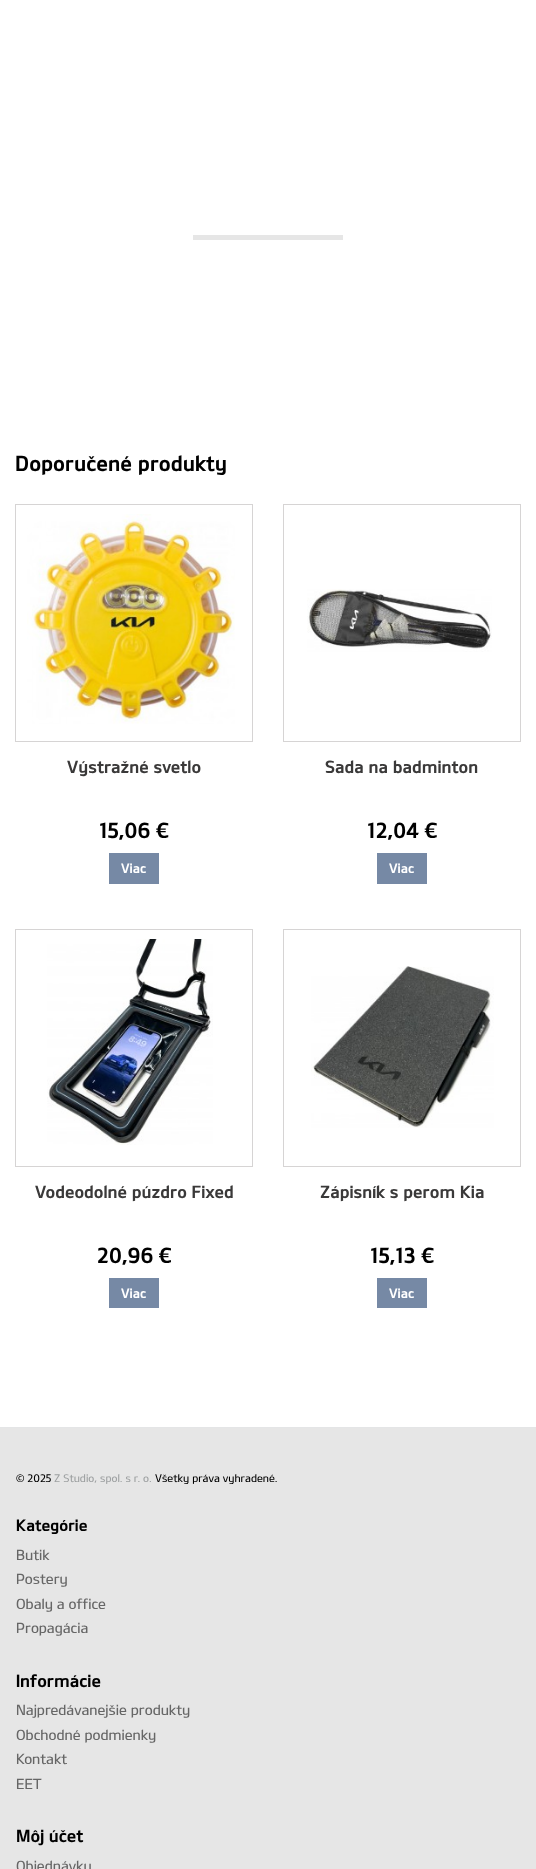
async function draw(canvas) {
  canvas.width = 536;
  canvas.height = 1869;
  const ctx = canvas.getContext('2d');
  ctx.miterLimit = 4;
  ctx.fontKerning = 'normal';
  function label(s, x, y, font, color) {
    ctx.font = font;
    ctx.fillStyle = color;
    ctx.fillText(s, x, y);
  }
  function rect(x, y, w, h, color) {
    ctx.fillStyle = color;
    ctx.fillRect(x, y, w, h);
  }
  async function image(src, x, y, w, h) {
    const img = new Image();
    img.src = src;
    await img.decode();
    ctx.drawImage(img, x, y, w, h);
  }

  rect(0, 0, 536, 1869, '#fff');
  rect(193, 235, 150, 5, '#e6e6e6');
  label('Doporučené produkty', 15, 471, '21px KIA', '#000');
  ctx.strokeStyle = '#d6d4d4';
  ctx.strokeRect(15.5, 504.5, 237, 237);
  await image('assets/img1.png', 27, 514, 208, 210);
  label('Výstražné svetlo', 67, 773, '17px KIA', '#3a3939');
  label('15,06 €', 99, 838, '21px KIA', '#000');
  rect(109, 853, 50, 31, '#7689a5');
  label('Viac', 121, 873, '13px KIA', '#fff');
  ctx.strokeRect(283.5, 504.5, 237, 237);
  await image('assets/img2.png', 307, 589, 185, 63);
  label('Sada na badminton', 325, 773, '17px KIA', '#3a3939');
  label('12,04 €', 367, 838, '21px KIA', '#000');
  rect(377, 853, 50, 31, '#7689a5');
  label('Viac', 389, 873, '13px KIA', '#fff');
  ctx.strokeRect(15.5, 929.5, 237, 237);
  await image('assets/img3.png', 47, 939, 166, 206);
  label('Vodeodolné púzdro Fixed', 35, 1198, '17px KIA', '#3a3939');
  label('20,96 €', 97, 1263, '21px KIA', '#000');
  rect(109, 1278, 50, 30, '#7689a5');
  label('Viac', 121, 1298, '13px KIA', '#fff');
  ctx.strokeRect(283.5, 929.5, 237, 237);
  await image('assets/img4.png', 311, 966, 183, 162);
  label('Zápisník s perom Kia', 320, 1198, '17px KIA', '#3a3939');
  label('15,13 €', 370, 1263, '21px KIA', '#000');
  rect(377, 1278, 50, 30, '#7689a5');
  label('Viac', 389, 1298, '13px KIA', '#fff');
  rect(0, 1428, 536, 441, '#e6e6e6');
  rect(0, 1427, 536, 1, '#e4e5e6');
  label('© 2025', 16, 1482, '10.5px "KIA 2"', '#000');
  label('Z Studio, spol. s r. o.', 54, 1482, '10.5px "KIA 2"', '#9ea1a2');
  label('Všetky práva vyhradené.', 155, 1482, '10.5px "KIA 2"', '#000');
  label('Kategórie', 16, 1531, '15.75px KIA', '#000');
  label('Butik', 16, 1560, '14px "KIA 2"', '#666');
  label('Postery', 16, 1584, '14px "KIA 2"', '#666');
  label('Obaly a office', 16, 1609, '14px "KIA 2"', '#666');
  label('Propagácia', 16, 1633, '14px "KIA 2"', '#666');
  label('Informácie', 16, 1687, '17px KIA', '#000');
  label('Najpredávanejšie produkty', 16, 1715, '14px "KIA 2"', '#666');
  label('Obchodné podmienky', 16, 1740, '14px "KIA 2"', '#666');
  label('Kontakt', 16, 1764, '14px "KIA 2"', '#666');
  label('EET', 16, 1789, '14px "KIA 2"', '#666');
  label('Môj účet', 16, 1842, '17px KIA', '#000');
  label('Objednávky', 16, 1871, '14px "KIA 2"', '#666');
}

draw(document.querySelector('canvas'));
